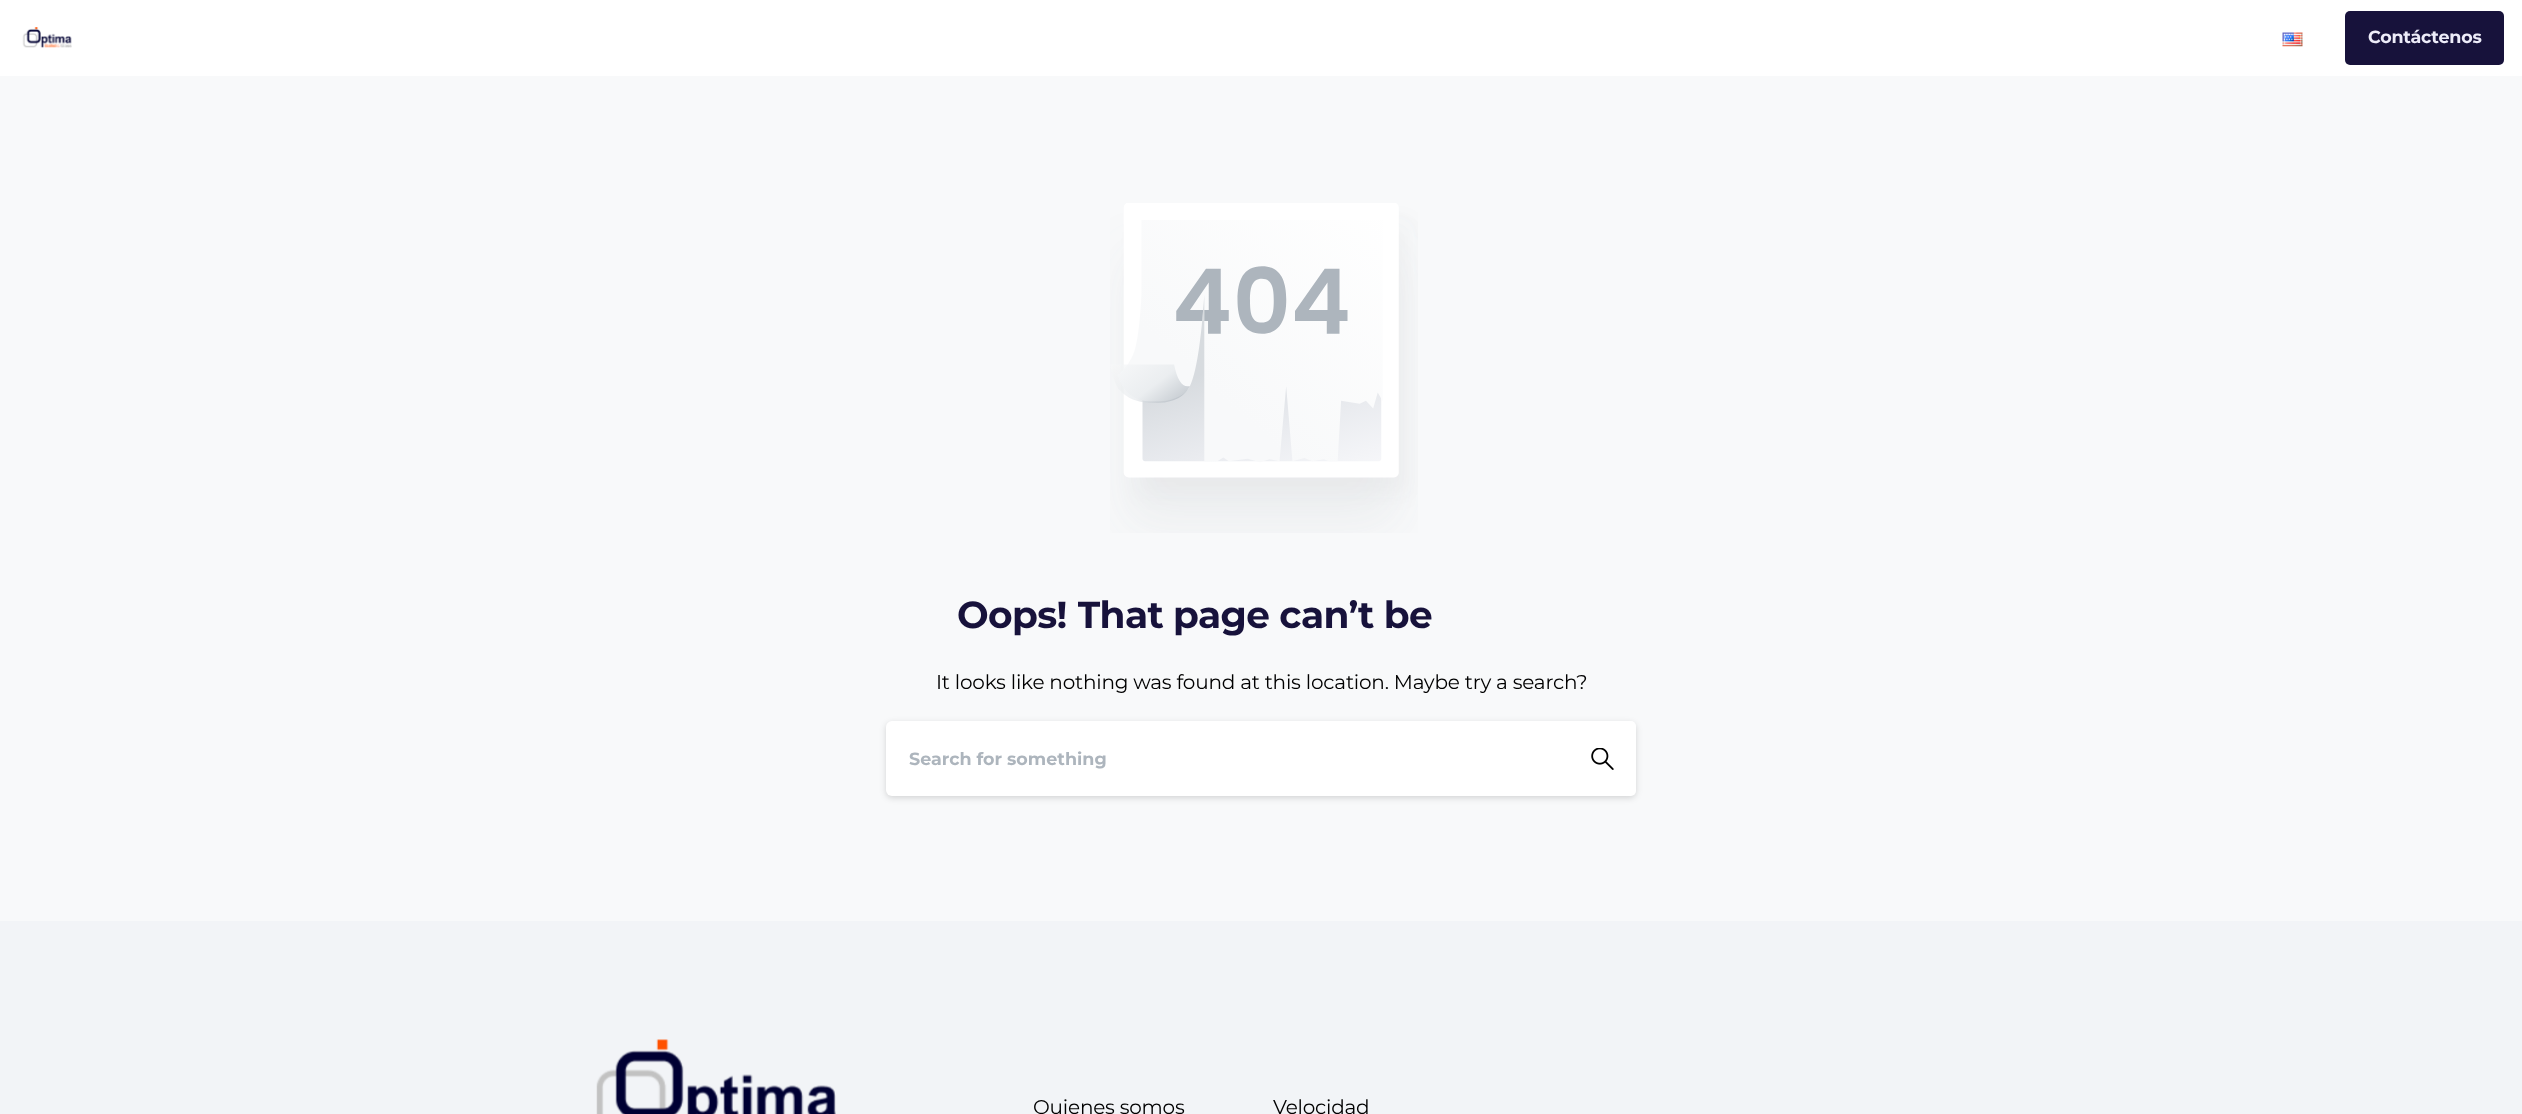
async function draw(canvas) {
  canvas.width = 2522;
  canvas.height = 1114;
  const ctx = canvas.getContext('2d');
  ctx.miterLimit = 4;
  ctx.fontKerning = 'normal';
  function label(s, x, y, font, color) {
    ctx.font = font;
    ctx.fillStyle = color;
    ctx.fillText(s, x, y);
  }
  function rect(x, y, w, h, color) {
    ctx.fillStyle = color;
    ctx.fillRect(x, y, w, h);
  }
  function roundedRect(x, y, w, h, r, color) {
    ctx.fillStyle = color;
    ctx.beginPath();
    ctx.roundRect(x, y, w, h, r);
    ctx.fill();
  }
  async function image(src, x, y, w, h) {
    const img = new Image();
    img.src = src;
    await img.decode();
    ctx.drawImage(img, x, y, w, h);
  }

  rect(0, 0, 2522, 1114, '#fff');
  await image('assets/img1.png', 22, 27, 50, 21);
  await image('assets/img2.png', 2282, 32, 21, 15);
  roundedRect(2345, 11, 159, 54, 5, '#17123b');
  ctx.letterSpacing = '-0.2px';
  label('Contáctenos', 2368, 43, 'bold 17.5px Montserrat', '#edecf9');
  rect(0, 76, 2522, 845, '#f8f9fa');
  await image('assets/img3.png', 1110, 203, 308, 330);
  ctx.letterSpacing = '-0.6px';
  label('Oops!', 957, 628, 'bold 37.5px Montserrat', '#17123b');
  ctx.save();
  ctx.beginPath();
  ctx.rect(1078, 593, 92, 47);
  ctx.clip();
  label('That', 1077, 628, 'bold 37.5px Montserrat', '#17123b');
  ctx.restore();
  label('page can’t be', 1173, 628, 'bold 37.5px Montserrat', '#17123b');
  ctx.letterSpacing = '-0.2px';
  label('It looks like nothing was found at this location. Maybe try a search?', 936, 689, '20px Montserrat', '#000');
  ctx.fillStyle = '#00000026';
  ctx.filter = 'blur(3px)';
  ctx.beginPath();
  ctx.roundRect(886, 723, 750, 75, 6);
  ctx.fill();
  ctx.filter = 'none';
  ctx.fillStyle = '#fff';
  ctx.beginPath();
  ctx.roundRect(886, 721, 683, 75, [6, 0, 0, 6]);
  ctx.fill();
  ctx.letterSpacing = '0px';
  label('Search for something', 909, 765, 'bold 17.5px Montserrat', '#adb5bd');
  ctx.fillStyle = '#fff';
  ctx.beginPath();
  ctx.roundRect(1569, 721, 67, 75, [0, 5, 5, 0]);
  ctx.fill();
  await image('assets/img4.png', 1591, 748, 23, 22);
  rect(0, 921, 2522, 193, '#f2f4f7');
  await image('assets/img5.png', 596, 1039, 240, 75);
  ctx.letterSpacing = '-0.2px';
  label('Quienes somos', 1033, 1114, '20px Montserrat', '#000');
  label('Velocidad', 1273, 1114, '20px Montserrat', '#000');
}

draw(document.querySelector('canvas'));
